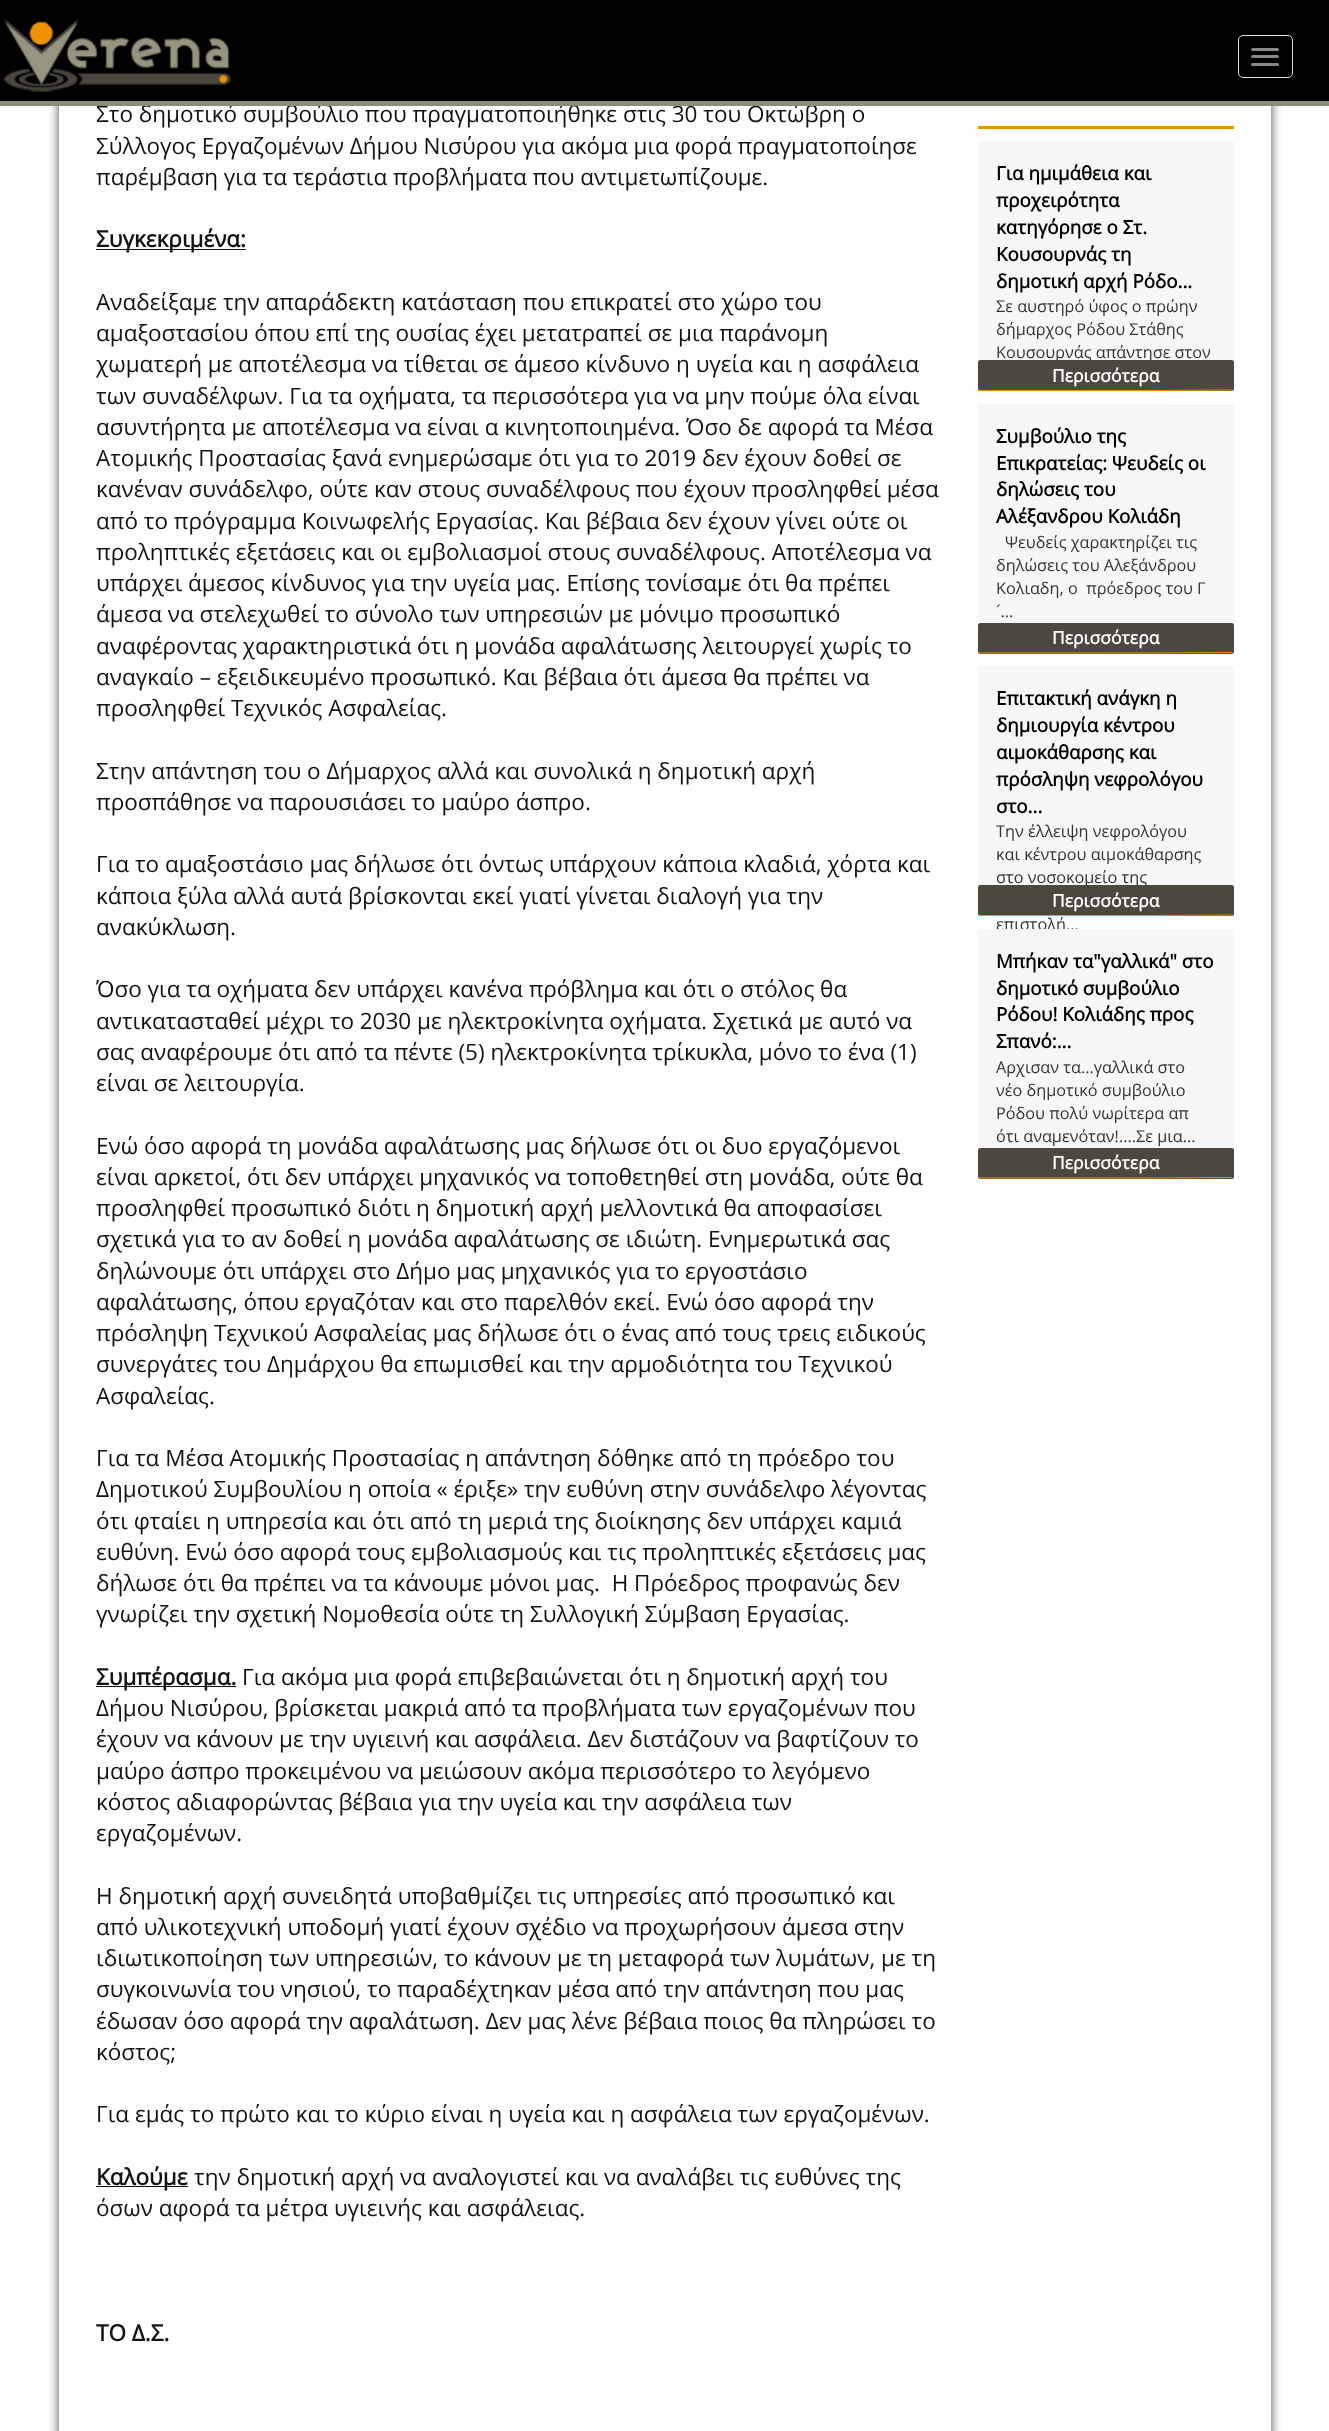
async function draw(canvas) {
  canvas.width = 1329;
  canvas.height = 2431;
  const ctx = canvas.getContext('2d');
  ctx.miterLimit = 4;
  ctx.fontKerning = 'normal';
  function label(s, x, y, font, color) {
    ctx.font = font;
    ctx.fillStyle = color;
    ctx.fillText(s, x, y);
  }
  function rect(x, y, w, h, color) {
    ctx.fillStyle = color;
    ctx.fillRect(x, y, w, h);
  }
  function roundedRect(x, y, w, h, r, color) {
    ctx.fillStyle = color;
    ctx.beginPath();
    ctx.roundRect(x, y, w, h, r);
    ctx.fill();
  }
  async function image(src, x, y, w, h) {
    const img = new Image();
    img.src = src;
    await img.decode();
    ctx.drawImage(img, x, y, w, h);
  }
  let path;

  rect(0, 0, 1329, 2431, '#fff');
  ctx.save();
  path = new Path2D('M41 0H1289V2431H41ZM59-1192H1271V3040H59Z');
  ctx.clip(path, 'evenodd');
  ctx.fillStyle = '#4c483f';
  ctx.filter = 'blur(5.5px)';
  ctx.beginPath();
  ctx.rect(59, -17, 1212, 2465);
  ctx.fill();
  ctx.filter = 'none';
  ctx.restore();
  rect(0, 0, 1329, 101, '#000');
  label('Στο δημοτικό συμβούλιο που πραγματοποιήθηκε στις 30 του Οκτώβρη ο', 96, 122, '22.5px Open Sans', '#121212');
  rect(0, 101, 1329, 5, '#8d8b78');
  await image('assets/img1.png', 3, 19, 228, 73);
  ctx.beginPath();
  ctx.roundRect(1238.5, 35.5, 54, 42, 4.5);
  ctx.strokeStyle = '#ddd';
  ctx.stroke();
  roundedRect(1251, 48, 28, 3, 1.5, '#888');
  roundedRect(1251, 55, 28, 3, 1.5, '#888');
  roundedRect(1251, 63, 28, 3, 1.5, '#888');
  label('Σύλλογος Εργαζομένων Δήμου Νισύρου για ακόμα μια φορά πραγματοποίησε', 96, 154, '22.5px Open Sans', '#121212');
  label('παρέμβαση για τα τεράστια προβλήματα που αντιμετωπίζουμε.', 96, 185, '22.5px Open Sans', '#121212');
  rect(96, 249, 150, 1, '#121212');
  label('Συγκεκριμένα:', 96, 247, 'bold 22.5px Open Sans', '#121212');
  label('Αναδείξαμε την απαράδεκτη κατάσταση που επικρατεί στο χώρο του', 96, 310, '22.5px Open Sans', '#121212');
  label('αμαξοστασίου όπου επί της ουσίας έχει μετατραπεί σε μια παράνομη', 96, 341, '22.5px Open Sans', '#121212');
  label('χωματερή με αποτέλεσμα να τίθεται σε άμεσο κίνδυνο η υγεία και η ασφάλεια', 96, 372, '22.5px Open Sans', '#121212');
  label('των συναδέλφων. Για τα οχήματα, τα περισσότερα για να μην πούμε όλα είναι', 96, 404, '22.5px Open Sans', '#121212');
  label('ασυντήρητα με αποτέλεσμα να είναι α κινητοποιημένα. Όσο δε αφορά τα Μέσα', 96, 435, '22.5px Open Sans', '#121212');
  label('Ατομικής Προστασίας ξανά ενημερώσαμε ότι για το 2019 δεν έχουν δοθεί σε', 96, 466, '22.5px Open Sans', '#121212');
  label('κανέναν συνάδελφο, ούτε καν στους συναδέλφους που έχουν προσληφθεί μέσα', 96, 497, '22.5px Open Sans', '#121212');
  label('από το πρόγραμμα Κοινωφελής Εργασίας. Και βέβαια δεν έχουν γίνει ούτε οι', 96, 529, '22.5px Open Sans', '#121212');
  label('προληπτικές εξετάσεις και οι εμβολιασμοί στους συναδέλφους. Αποτέλεσμα να', 96, 560, '22.5px Open Sans', '#121212');
  label('υπάρχει άμεσος κίνδυνος για την υγεία μας. Επίσης τονίσαμε ότι θα πρέπει', 96, 591, '22.5px Open Sans', '#121212');
  label('άμεσα να στελεχωθεί το σύνολο των υπηρεσιών με μόνιμο προσωπικό', 96, 622, '22.5px Open Sans', '#121212');
  label('αναφέροντας χαρακτηριστικά ότι η μονάδα αφαλάτωσης λειτουργεί χωρίς το', 96, 654, '22.5px Open Sans', '#121212');
  label('αναγκαίο – εξειδικευμένο προσωπικό. Και βέβαια ότι άμεσα θα πρέπει να', 96, 685, '22.5px Open Sans', '#121212');
  label('προσληφθεί Τεχνικός Ασφαλείας.', 96, 716, '22.5px Open Sans', '#121212');
  label('Στην απάντηση του ο Δήμαρχος αλλά και συνολικά η δημοτική αρχή', 96, 779, '22.5px Open Sans', '#121212');
  label('προσπάθησε να παρουσιάσει το μαύρο άσπρο.', 96, 810, '22.5px Open Sans', '#121212');
  label('Για το αμαξοστάσιο μας δήλωσε ότι όντως υπάρχουν κάποια κλαδιά, χόρτα και', 96, 872, '22.5px Open Sans', '#121212');
  label('κάποια ξύλα αλλά αυτά βρίσκονται εκεί γιατί γίνεται διαλογή για την', 96, 904, '22.5px Open Sans', '#121212');
  label('ανακύκλωση.', 96, 935, '22.5px Open Sans', '#121212');
  label('Όσο για τα οχήματα δεν υπάρχει κανένα πρόβλημα και ότι ο στόλος θα', 96, 997, '22.5px Open Sans', '#121212');
  label('αντικατασταθεί μέχρι το 2030 με ηλεκτροκίνητα οχήματα. Σχετικά με αυτό να', 96, 1029, '22.5px Open Sans', '#121212');
  label('σας αναφέρουμε ότι από τα πέντε (5) ηλεκτροκίνητα τρίκυκλα, μόνο το ένα (1)', 96, 1060, '22.5px Open Sans', '#121212');
  label('είναι σε λειτουργία.', 96, 1091, '22.5px Open Sans', '#121212');
  label('Ενώ όσο αφορά τη μονάδα αφαλάτωσης μας δήλωσε ότι οι δυο εργαζόμενοι', 96, 1154, '22.5px Open Sans', '#121212');
  label('είναι αρκετοί, ότι δεν υπάρχει μηχανικός να τοποθετηθεί στη μονάδα, ούτε θα', 96, 1185, '22.5px Open Sans', '#121212');
  label('προσληφθεί προσωπικό διότι η δημοτική αρχή μελλοντικά θα αποφασίσει', 96, 1216, '22.5px Open Sans', '#121212');
  label('σχετικά για το αν δοθεί η μονάδα αφαλάτωσης σε ιδιώτη. Ενημερωτικά σας', 96, 1247, '22.5px Open Sans', '#121212');
  label('δηλώνουμε ότι υπάρχει στο Δήμο μας μηχανικός για το εργοστάσιο', 96, 1279, '22.5px Open Sans', '#121212');
  label('αφαλάτωσης, όπου εργαζόταν και στο παρελθόν εκεί. Ενώ όσο αφορά την', 96, 1310, '22.5px Open Sans', '#121212');
  label('πρόσληψη Τεχνικού Ασφαλείας μας δήλωσε ότι ο ένας από τους τρεις ειδικούς', 96, 1341, '22.5px Open Sans', '#121212');
  label('συνεργάτες του Δημάρχου θα επωμισθεί και την αρμοδιότητα του Τεχνικού', 96, 1372, '22.5px Open Sans', '#121212');
  label('Ασφαλείας.', 96, 1404, '22.5px Open Sans', '#121212');
  label('Για τα Μέσα Ατομικής Προστασίας η απάντηση δόθηκε από τη πρόεδρο του', 96, 1466, '22.5px Open Sans', '#121212');
  label('Δημοτικού Συμβουλίου η οποία « έριξε» την ευθύνη στην συνάδελφο λέγοντας', 96, 1497, '22.5px Open Sans', '#121212');
  label('ότι φταίει η υπηρεσία και ότι από τη μεριά της διοίκησης δεν υπάρχει καμιά', 96, 1529, '22.5px Open Sans', '#121212');
  label('ευθύνη. Ενώ όσο αφορά τους εμβολιασμούς και τις προληπτικές εξετάσεις μας', 96, 1560, '22.5px Open Sans', '#121212');
  label('δήλωσε ότι θα πρέπει να τα κάνουμε μόνοι μας.  Η Πρόεδρος προφανώς δεν', 96, 1591, '22.5px Open Sans', '#121212');
  label('γνωρίζει την σχετική Νομοθεσία ούτε τη Συλλογική Σύμβαση Εργασίας.', 96, 1622, '22.5px Open Sans', '#121212');
  rect(96, 1686, 140, 1, '#121212');
  label('Συμπέρασμα.', 96, 1685, 'bold 22.5px Open Sans', '#121212');
  label('Για ακόμα μια φορά επιβεβαιώνεται ότι η δημοτική αρχή του', 242, 1685, '22.5px Open Sans', '#121212');
  label('Δήμου Νισύρου, βρίσκεται μακριά από τα προβλήματα των εργαζομένων που', 96, 1716, '22.5px Open Sans', '#121212');
  label('έχουν να κάνουν με την υγιεινή και ασφάλεια. Δεν διστάζουν να βαφτίζουν το', 96, 1747, '22.5px Open Sans', '#121212');
  label('μαύρο άσπρο προκειμένου να μειώσουν ακόμα περισσότερο το λεγόμενο', 96, 1779, '22.5px Open Sans', '#121212');
  label('κόστος αδιαφορώντας βέβαια για την υγεία και την ασφάλεια των', 96, 1810, '22.5px Open Sans', '#121212');
  label('εργαζομένων.', 96, 1841, '22.5px Open Sans', '#121212');
  label('Η δημοτική αρχή συνειδητά υποβαθμίζει τις υπηρεσίες από προσωπικό και', 96, 1904, '22.5px Open Sans', '#121212');
  label('από υλικοτεχνική υποδομή γιατί έχουν σχέδιο να προχωρήσουν άμεσα στην', 96, 1935, '22.5px Open Sans', '#121212');
  label('ιδιωτικοποίηση των υπηρεσιών, το κάνουν με τη μεταφορά των λυμάτων, με τη', 96, 1966, '22.5px Open Sans', '#121212');
  label('συγκοινωνία του νησιού, το παραδέχτηκαν μέσα από την απάντηση που μας', 96, 1997, '22.5px Open Sans', '#121212');
  label('έδωσαν όσο αφορά την αφαλάτωση. Δεν μας λένε βέβαια ποιος θα πληρώσει το', 96, 2029, '22.5px Open Sans', '#121212');
  label('κόστος;', 96, 2060, '22.5px Open Sans', '#121212');
  label('Για εμάς το πρώτο και το κύριο είναι η υγεία και η ασφάλεια των εργαζομένων.', 96, 2122, '22.5px Open Sans', '#121212');
  rect(96, 2186, 92, 1, '#121212');
  label('Καλούμε', 96, 2185, 'bold 22.5px Open Sans', '#121212');
  label('την δημοτική αρχή να αναλογιστεί και να αναλάβει τις ευθύνες της', 194, 2185, '22.5px Open Sans', '#121212');
  label('όσων αφορά τα μέτρα υγιεινής και ασφάλειας.', 96, 2216, '22.5px Open Sans', '#121212');
  label('ΤΟ Δ.Σ.', 96, 2341, 'bold 22.5px Open Sans', '#121212');
  rect(978, 126, 256, 3, '#ee9202');
  roundedRect(978, 141, 256, 250, 2.5, '#f7f7f7');
  label('Για ημιμάθεια και', 996, 180, 'bold 18.75px Open Sans', '#000');
  label('προχειρότητα', 996, 207, 'bold 18.75px Open Sans', '#000');
  label('κατηγόρησε ο Στ.', 996, 234, 'bold 18.75px Open Sans', '#000');
  label('Κουσουρνάς τη', 996, 261, 'bold 18.75px Open Sans', '#000');
  label('δημοτική αρχή Ρόδο...', 996, 288, 'bold 18.75px Open Sans', '#000');
  label('Σε αυστηρό ύφος ο πρώην', 996, 312, '16.25px Open Sans', '#333');
  label('δήμαρχος Ρόδου Στάθης', 996, 335, '16.25px Open Sans', '#333');
  label('Κουσουρνάς απάντησε στον', 996, 358, '16.25px Open Sans', '#333');
  roundedRect(978, 360, 256, 31, 2.5, '#4c483f');
  path = new Path2D('M1232.5 390L1147.5 390.5H980L978.5 390');
  ctx.strokeStyle = '#ee9202';
  ctx.lineWidth = 1.2;
  ctx.stroke(path);
  label('Περισσότερα', 1052, 382, 'bold 17.5px Open Sans', '#fff');
  roundedRect(978, 404, 256, 250, 2.5, '#f7f7f7');
  label('Συμβούλιο της', 996, 443, 'bold 18.75px Open Sans', '#000');
  label('Επικρατείας: Ψευδείς οι', 996, 470, 'bold 18.75px Open Sans', '#000');
  label('δηλώσεις του', 996, 496, 'bold 18.75px Open Sans', '#000');
  label('Αλέξανδρου Κολιάδη', 996, 523, 'bold 18.75px Open Sans', '#000');
  label('Ψευδείς χαρακτηρίζει τις', 1005, 548, '16.25px Open Sans', '#333');
  label('δηλώσεις του Αλεξάνδρου', 996, 571, '16.25px Open Sans', '#333');
  label('Κολιαδη, ο  πρόεδρος του Γ', 996, 594, '16.25px Open Sans', '#333');
  label('´...', 996, 617, '16.25px Open Sans', '#333');
  roundedRect(978, 623, 256, 31, 2.5, '#4c483f');
  path = new Path2D('M1232.5 652.5L1147.5 653H980L978.5 652.5');
  ctx.stroke(path);
  label('Περισσότερα', 1052, 644, 'bold 17.5px Open Sans', '#fff');
  roundedRect(978, 666, 256, 250, 2.5, '#f7f7f7');
  label('Επιτακτική ανάγκη η', 996, 705, 'bold 18.75px Open Sans', '#000');
  label('δημιουργία κέντρου', 996, 732, 'bold 18.75px Open Sans', '#000');
  label('αιμοκάθαρσης και', 996, 759, 'bold 18.75px Open Sans', '#000');
  label('πρόσληψη νεφρολόγου', 996, 786, 'bold 18.75px Open Sans', '#000');
  label('στο...', 996, 813, 'bold 18.75px Open Sans', '#000');
  label('Την έλλειψη νεφρολόγου', 996, 837, '16.25px Open Sans', '#333');
  label('και κέντρου αιμοκάθαρσης', 996, 860, '16.25px Open Sans', '#333');
  label('στο νοσοκομείο της', 996, 883, '16.25px Open Sans', '#333');
  label('επιστολή...', 996, 930, '16.25px Open Sans', '#333');
  roundedRect(978, 885, 256, 31, 2.5, '#4c483f');
  path = new Path2D('M1232.5 915L1147.5 915.5H980L978.5 915');
  ctx.stroke(path);
  label('Περισσότερα', 1052, 907, 'bold 17.5px Open Sans', '#fff');
  roundedRect(978, 929, 256, 250, 2.5, '#f7f7f7');
  label('Μπήκαν τα"γαλλικά" στο', 996, 968, 'bold 18.75px Open Sans', '#000');
  label('δημοτικό συμβούλιο', 996, 995, 'bold 18.75px Open Sans', '#000');
  label('Ρόδου! Κολιάδης προς', 996, 1021, 'bold 18.75px Open Sans', '#000');
  label('Σπανό:...', 996, 1048, 'bold 18.75px Open Sans', '#000');
  label('Αρχισαν τα...γαλλικά στο', 996, 1073, '16.25px Open Sans', '#333');
  label('νέο δημοτικό συμβούλιο', 996, 1096, '16.25px Open Sans', '#333');
  label('Ρόδου πολύ νωρίτερα απ', 996, 1119, '16.25px Open Sans', '#333');
  label('ότι αναμενόταν!....Σε μια...', 996, 1142, '16.25px Open Sans', '#333');
  roundedRect(978, 1148, 256, 31, 2.5, '#4c483f');
  path = new Path2D('M1232.5 1177.5L1147.5 1178H980L978.5 1177.5');
  ctx.stroke(path);
  label('Περισσότερα', 1052, 1169, 'bold 17.5px Open Sans', '#fff');
}

draw(document.querySelector('canvas'));
